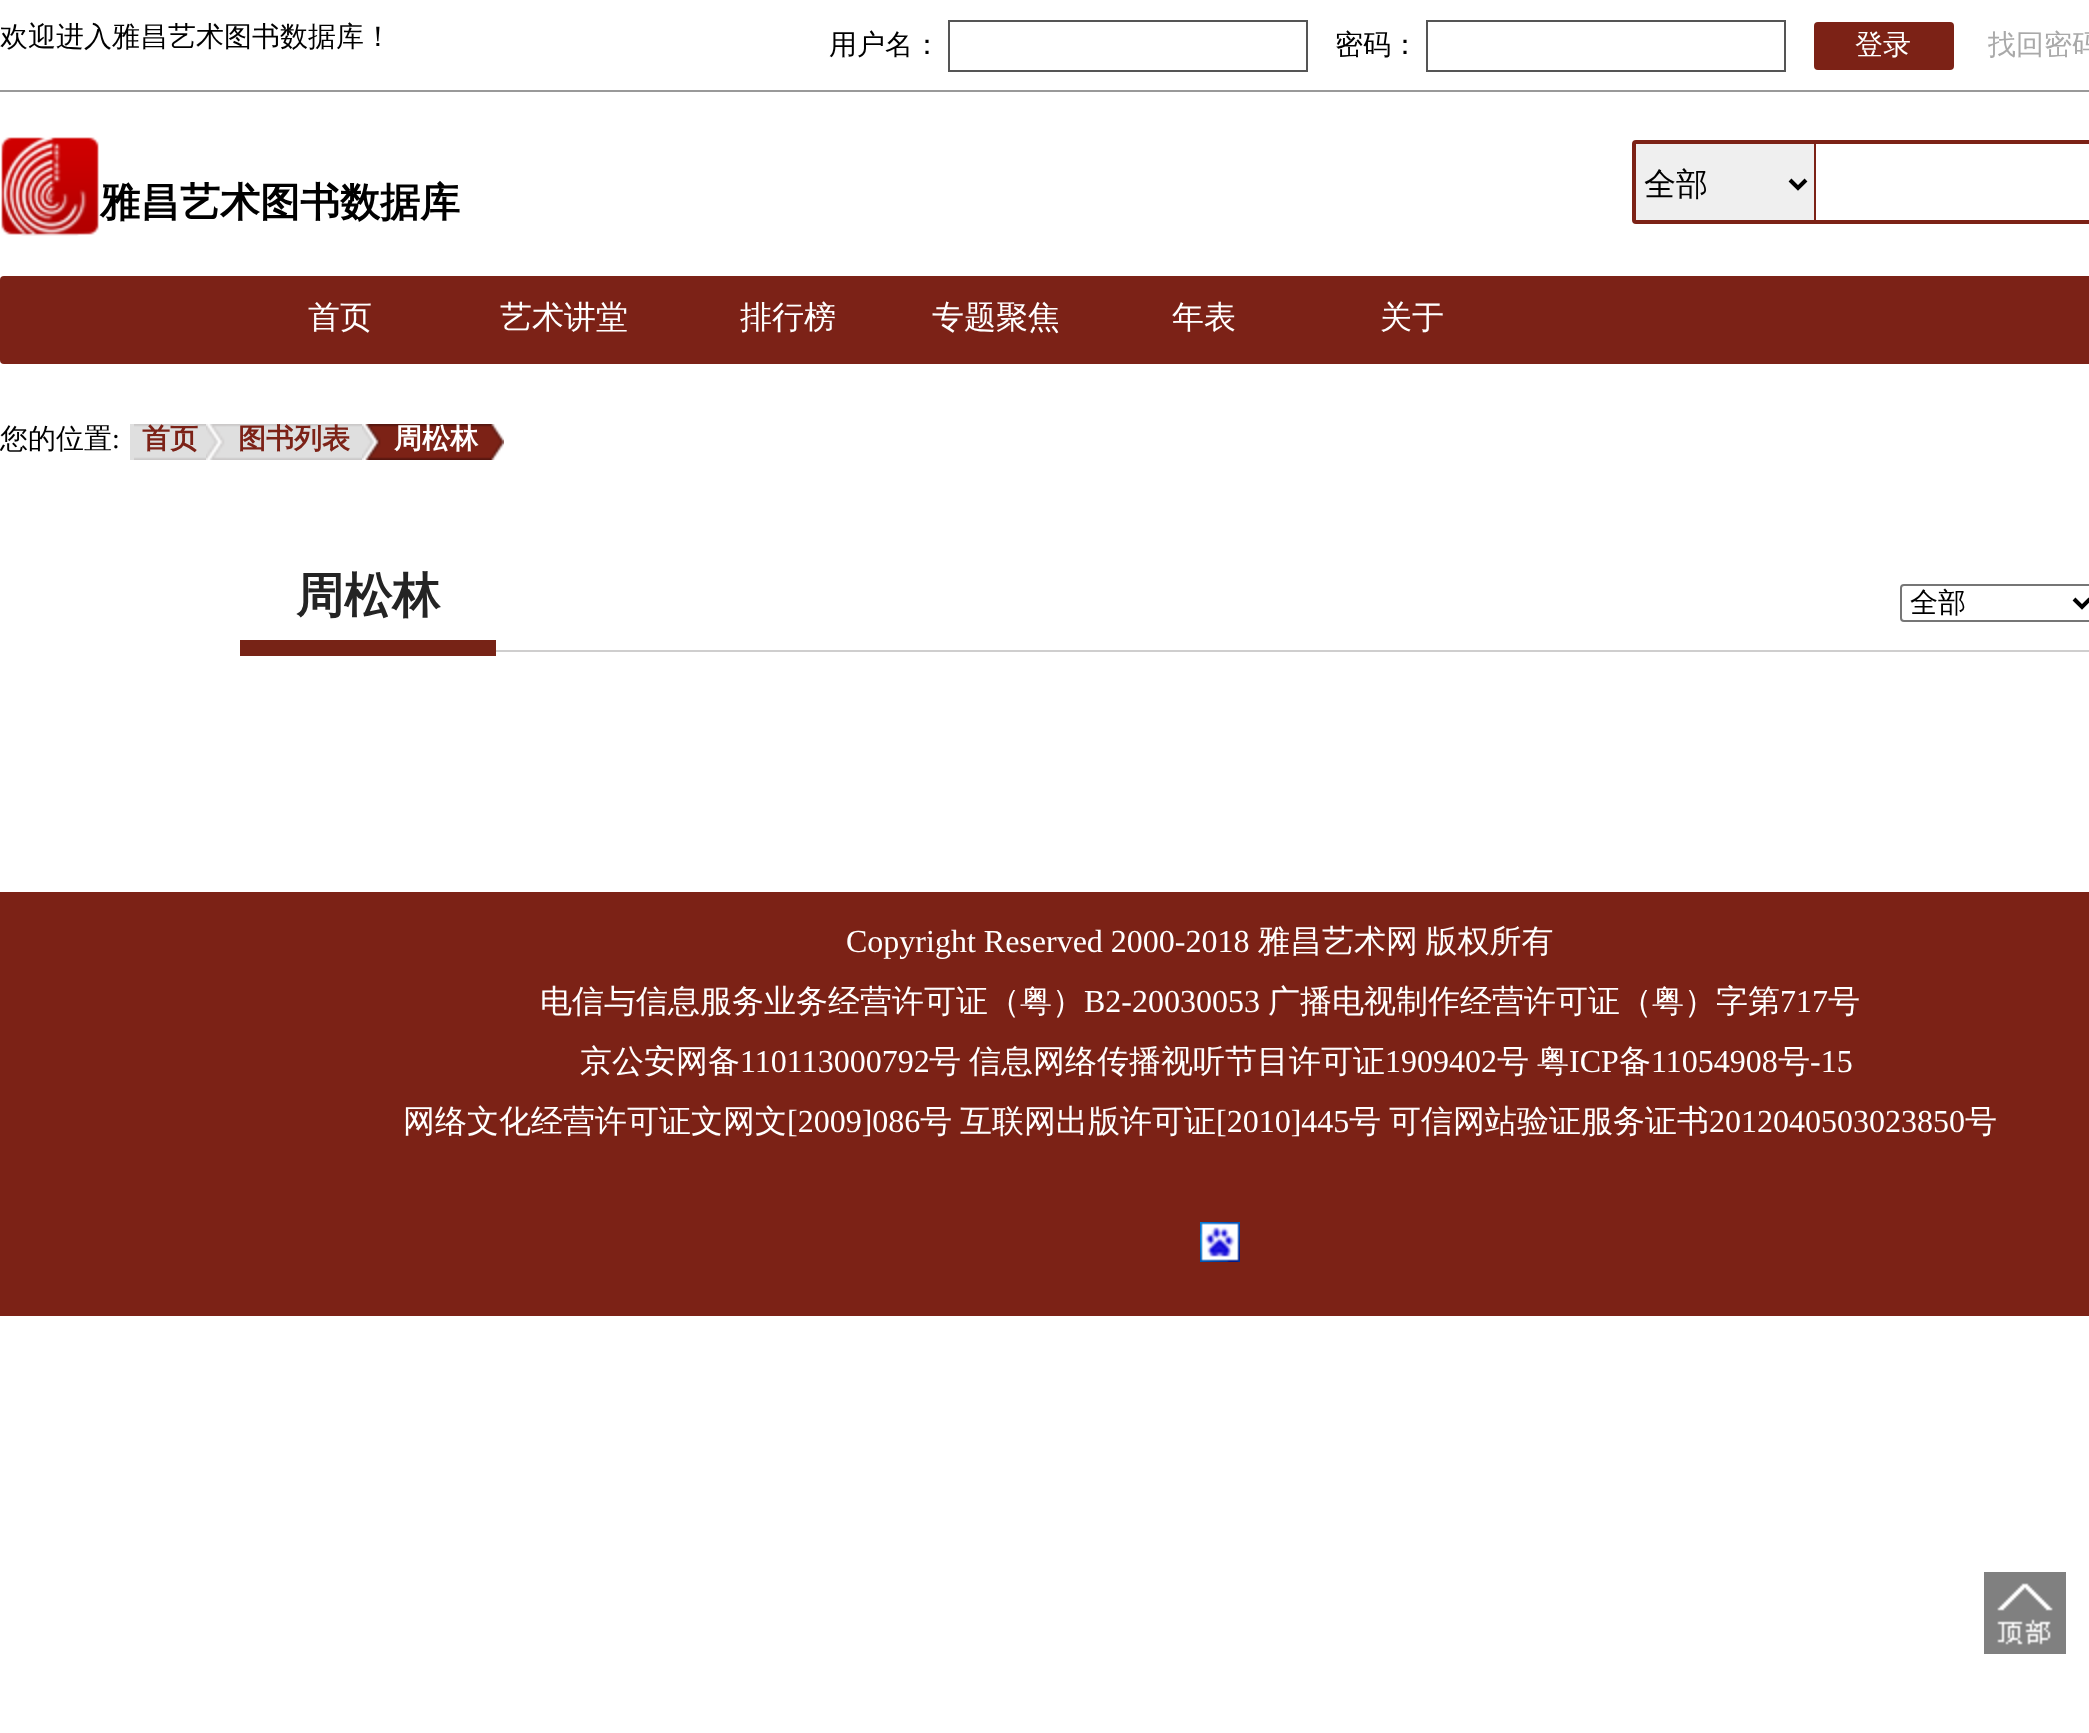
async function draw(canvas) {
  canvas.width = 2089;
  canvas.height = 1733;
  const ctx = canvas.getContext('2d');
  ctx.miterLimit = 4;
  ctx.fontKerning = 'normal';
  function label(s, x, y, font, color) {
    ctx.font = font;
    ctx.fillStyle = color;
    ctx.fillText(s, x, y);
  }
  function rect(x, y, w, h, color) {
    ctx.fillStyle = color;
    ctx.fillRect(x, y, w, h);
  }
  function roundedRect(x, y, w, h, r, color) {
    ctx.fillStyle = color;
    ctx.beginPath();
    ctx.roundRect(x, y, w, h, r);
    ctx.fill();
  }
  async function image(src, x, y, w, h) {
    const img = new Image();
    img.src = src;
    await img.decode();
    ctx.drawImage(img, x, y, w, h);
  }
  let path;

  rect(0, 0, 2089, 1733, '#fff');
  rect(0, 90, 2089, 2, '#999');
  label('欢迎进入雅昌艺术图书数据库！', 0, 46, '500 28px WenQuanYi Zen Hei', '#000');
  label('用户名：', 829, 54, '500 28px WenQuanYi Zen Hei', '#000');
  ctx.strokeStyle = '#555';
  ctx.lineWidth = 2;
  ctx.strokeRect(949, 21, 358, 50);
  label('密码：', 1335, 54, '500 28px WenQuanYi Zen Hei', '#000');
  ctx.strokeRect(1427, 21, 358, 50);
  roundedRect(1814, 22, 140, 48, 4, '#7c2216');
  label('登录', 1855, 54, '500 28px WenQuanYi Zen Hei', '#fff');
  label('找回密码', 1988, 54, '500 28px WenQuanYi Zen Hei', '#a9a9a9');
  await image('assets/img1.png', 1, 137, 98, 99);
  label('雅昌艺术图书数据库', 100, 216, 'bold 40px WenQuanYi Zen Hei', '#000');
  ctx.beginPath();
  ctx.roundRect(1634, 142, 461, 80, 2);
  ctx.strokeStyle = '#7c2216';
  ctx.lineWidth = 4;
  ctx.stroke();
  rect(1636, 144, 178, 76, '#efefef');
  rect(1814, 144, 2, 76, '#7c2216');
  path = new Path2D('M1790 180L1798 188L1806 180');
  ctx.strokeStyle = '#000';
  ctx.stroke(path);
  label('全部', 1644, 195, '500 32px WenQuanYi Zen Hei', '#000');
  roundedRect(0, 276, 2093, 88, 4, '#7c2217');
  label('首页', 308, 328, '500 32px WenQuanYi Zen Hei', '#fff');
  label('艺术讲堂', 500, 328, '500 32px WenQuanYi Zen Hei', '#fff');
  label('排行榜', 740, 328, '500 32px WenQuanYi Zen Hei', '#fff');
  label('专题聚焦', 932, 328, '500 32px WenQuanYi Zen Hei', '#fff');
  label('年表', 1172, 328, '500 32px WenQuanYi Zen Hei', '#fff');
  label('关于', 1380, 328, '500 32px WenQuanYi Zen Hei', '#fff');
  label('您的位置', 0, 448, '500 28px WenQuanYi Zen Hei', '#000');
  label(':', 112, 448, '28px Liberation Serif', '#000');
  await image('assets/img2.png', 134, 424, 72, 36);
  rect(130, 424, 4, 36, '#dfdfdf');
  label('首页', 142, 448, 'bold 28px WenQuanYi Zen Hei', '#7c2217');
  await image('assets/img3.png', 206, 424, 20, 36);
  await image('assets/img4.png', 226, 424, 136, 36);
  label('图书列表', 238, 448, 'bold 28px WenQuanYi Zen Hei', '#7c2217');
  await image('assets/img5.png', 362, 424, 20, 36);
  await image('assets/img6.png', 382, 424, 108, 36);
  label('周松林', 394, 448, 'bold 28px WenQuanYi Zen Hei', '#fff');
  await image('assets/img7.png', 490, 424, 14, 36);
  rect(496, 650, 1593, 2, '#cfcece');
  rect(240, 640, 256, 16, '#772316');
  label('周松林', 296, 612, 'bold 48px WenQuanYi Zen Hei', '#242424');
  ctx.beginPath();
  ctx.roundRect(1901, 585, 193, 36, 3);
  ctx.strokeStyle = '#767676';
  ctx.lineWidth = 2;
  ctx.stroke();
  path = new Path2D('M2074 599L2082 607L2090 599');
  ctx.strokeStyle = '#000';
  ctx.lineWidth = 4;
  ctx.stroke(path);
  label('全部', 1910, 612, '500 28px WenQuanYi Zen Hei', '#000');
  await image('assets/img8.png', 1984, 1572, 82, 82);
  rect(0, 892, 2089, 424, '#7c2216');
  label('Copyright Reserved 2000-2018', 846, 952, '32px Liberation Serif', '#fff');
  ctx.wordSpacing = '-2px';
  label('雅昌艺术网 版权所有', 1258, 952, '500 32px WenQuanYi Zen Hei', '#fff');
  ctx.wordSpacing = '0px';
  label('电信与信息服务业务经营许可证（粤）', 540, 1012, '500 32px WenQuanYi Zen Hei', '#fff');
  label('B2-20030053', 1084, 1012, '32px Liberation Serif', '#fff');
  label('广播电视制作经营许可证（粤）字第', 1268, 1012, '500 32px WenQuanYi Zen Hei', '#fff');
  label('717', 1780, 1012, '32px Liberation Serif', '#fff');
  label('号', 1828, 1012, '500 32px WenQuanYi Zen Hei', '#fff');
  label('京公安网备', 580, 1072, '500 32px WenQuanYi Zen Hei', '#fff');
  label('110113000792', 740, 1072, '32px Liberation Serif', '#fff');
  label('号', 929, 1072, '500 32px WenQuanYi Zen Hei', '#fff');
  label('信息网络传播视听节目许可证', 969, 1072, '500 32px WenQuanYi Zen Hei', '#fff');
  label('1909402', 1385, 1072, '32px Liberation Serif', '#fff');
  label('号', 1497, 1072, '500 32px WenQuanYi Zen Hei', '#fff');
  label('粤', 1537, 1072, '500 32px WenQuanYi Zen Hei', '#fff');
  label('ICP', 1569, 1072, '32px Liberation Serif', '#fff');
  label('备', 1619, 1072, '500 32px WenQuanYi Zen Hei', '#fff');
  label('11054908', 1651, 1072, '32px Liberation Serif', '#fff');
  label('号', 1778, 1072, '500 32px WenQuanYi Zen Hei', '#fff');
  label('-15', 1810, 1072, '32px Liberation Serif', '#fff');
  label('网络文化经营许可证文网文', 403, 1132, '500 32px WenQuanYi Zen Hei', '#fff');
  label('[2009]086', 787, 1132, '32px Liberation Serif', '#fff');
  label('号', 920, 1132, '500 32px WenQuanYi Zen Hei', '#fff');
  label('互联网出版许可证', 960, 1132, '500 32px WenQuanYi Zen Hei', '#fff');
  label('[2010]445', 1216, 1132, '32px Liberation Serif', '#fff');
  label('号', 1349, 1132, '500 32px WenQuanYi Zen Hei', '#fff');
  label('可信网站验证服务证书', 1389, 1132, '500 32px WenQuanYi Zen Hei', '#fff');
  label('2012040503023850', 1709, 1132, '32px Liberation Serif', '#fff');
  label('号', 1965, 1132, '500 32px WenQuanYi Zen Hei', '#fff');
  await image('assets/img9.png', 1200, 1222, 40, 40);
}

draw(document.querySelector('canvas'));
